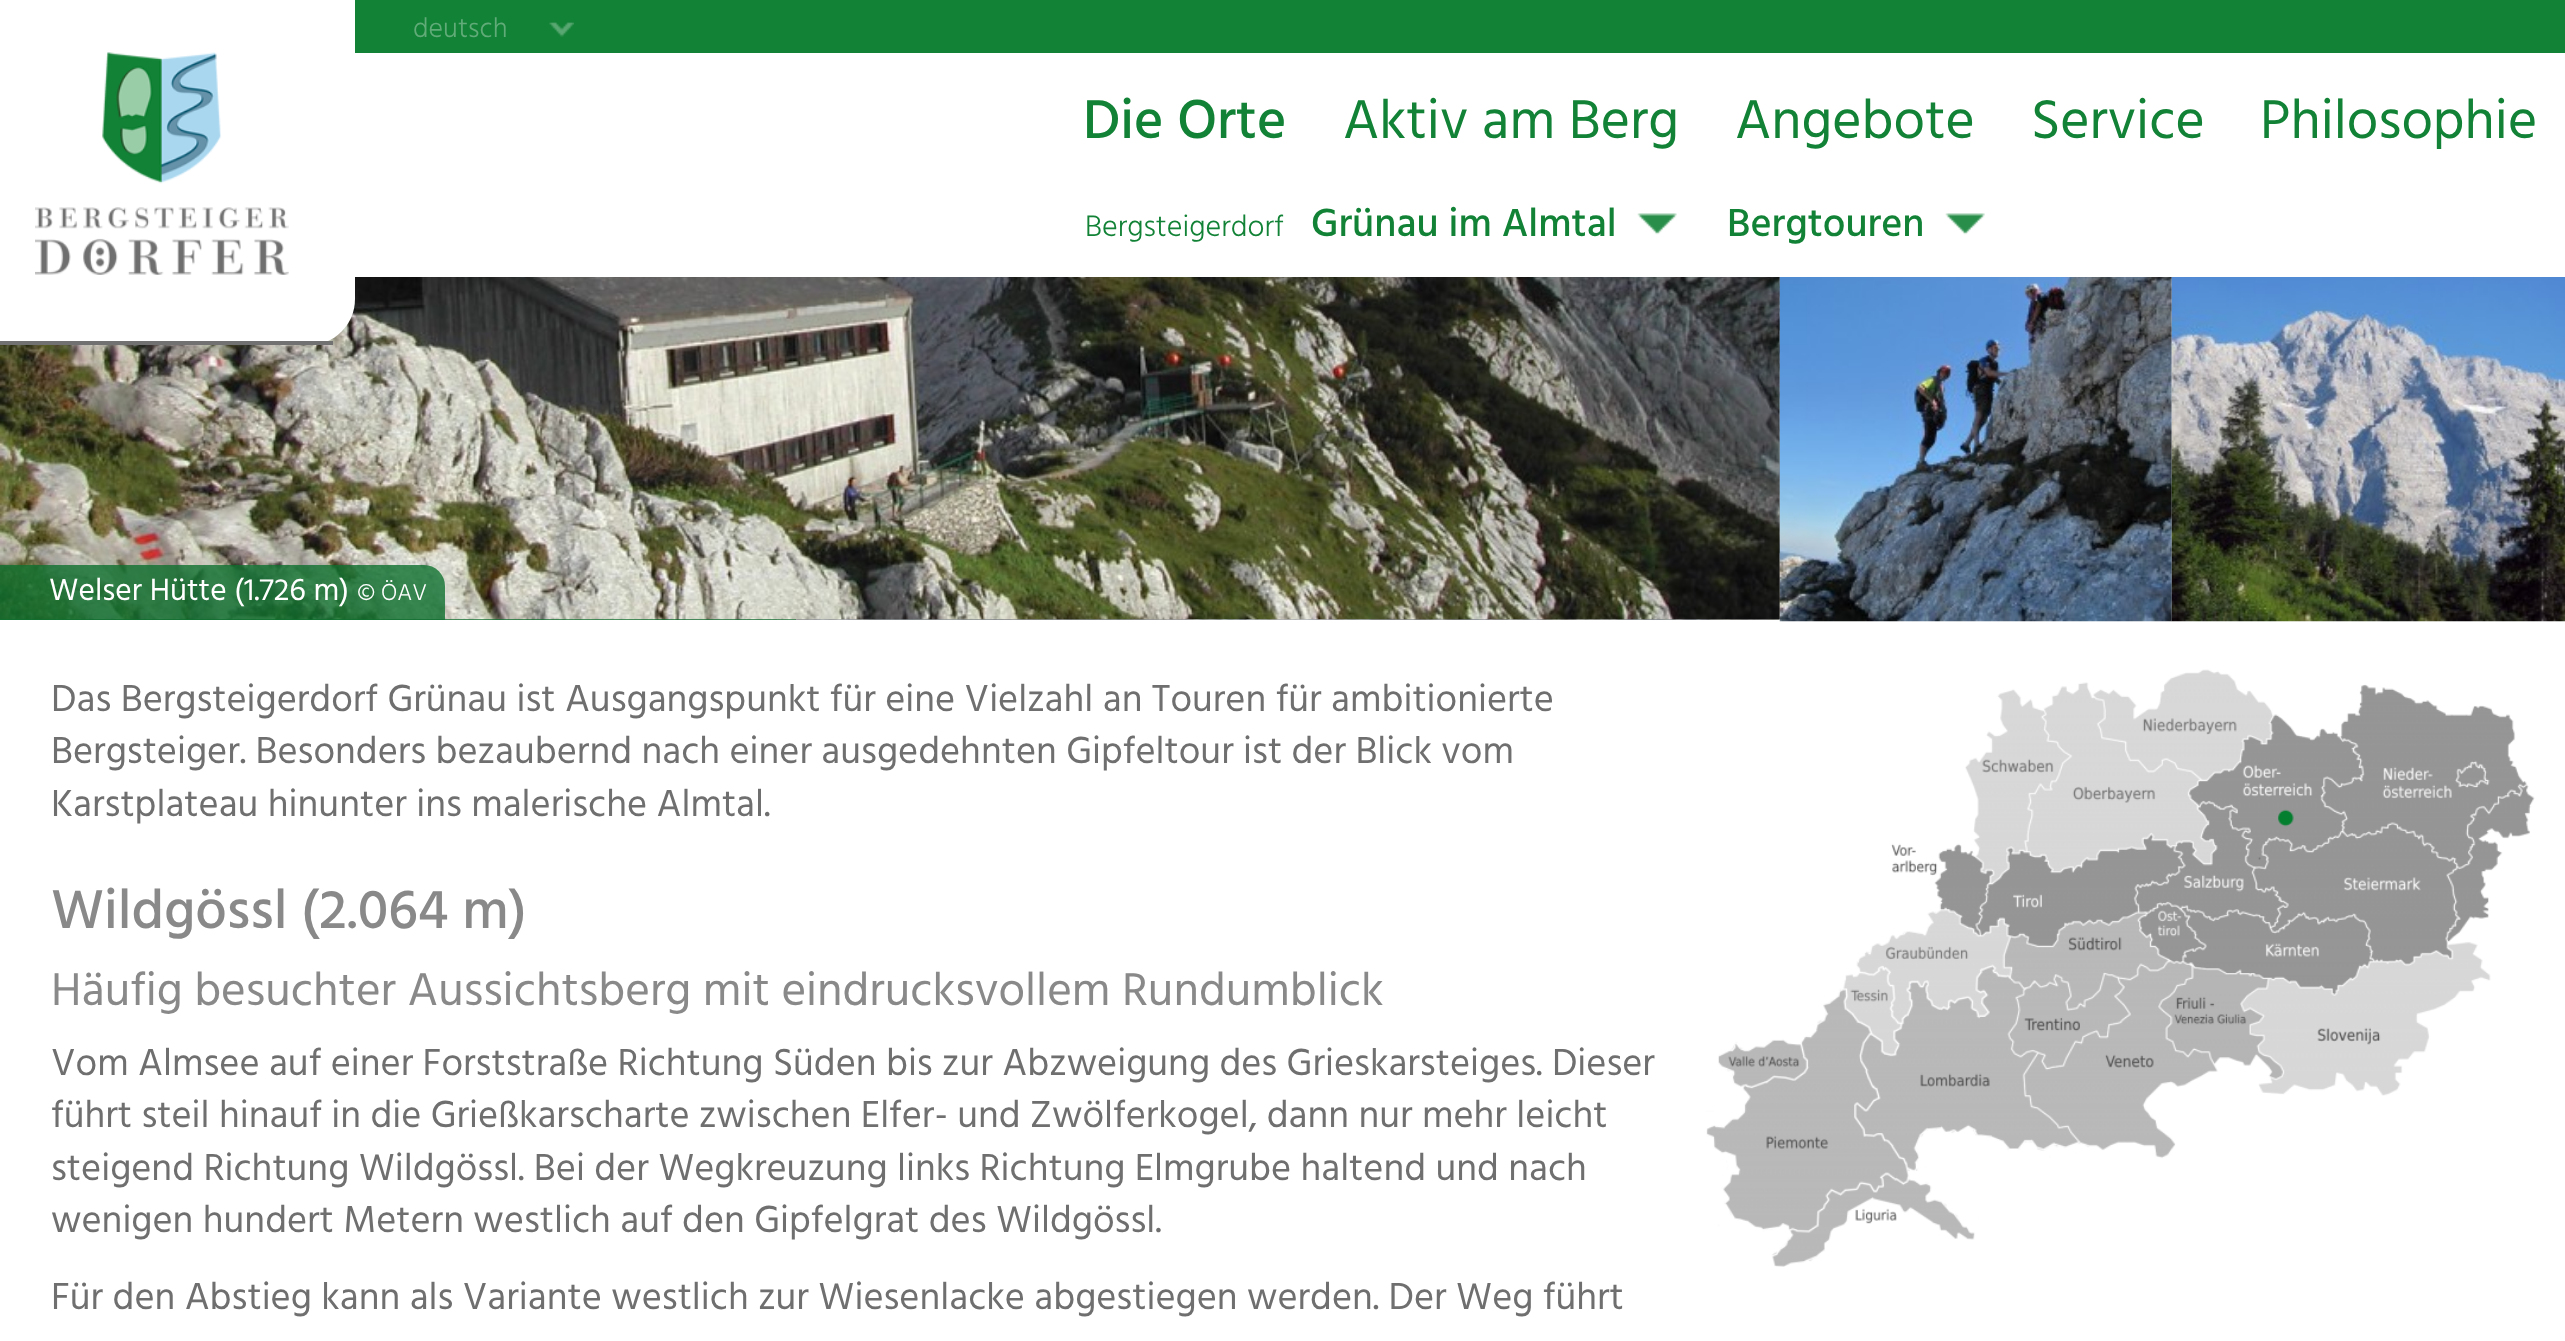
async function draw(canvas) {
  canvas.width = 2565;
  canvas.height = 1341;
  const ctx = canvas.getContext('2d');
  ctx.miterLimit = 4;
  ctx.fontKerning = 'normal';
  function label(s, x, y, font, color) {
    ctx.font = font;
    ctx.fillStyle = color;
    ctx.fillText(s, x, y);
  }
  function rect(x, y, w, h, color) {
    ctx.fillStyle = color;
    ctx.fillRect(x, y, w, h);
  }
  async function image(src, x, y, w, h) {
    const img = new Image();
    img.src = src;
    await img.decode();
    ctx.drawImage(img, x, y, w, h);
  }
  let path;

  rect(0, 0, 2565, 1341, '#fff');
  rect(355, 0, 2210, 53, '#128236');
  rect(257, 277, 1915, 343, '#f6fbff');
  await image('assets/img5.png', 0, 277, 1780, 343);
  rect(0, 619, 777, 1, '#0f712fcc');
  await image('assets/img6.png', 0, 277, 1780, 343);
  rect(0, 619, 683, 1, '#0f712fcc');
  await image('assets/img7.png', 0, 277, 1780, 343);
  rect(0, 619, 796, 1, '#0f712fcc');
  await image('assets/img8.png', 0, 277, 1780, 343);
  ctx.fillStyle = '#fff';
  path = new Path2D('M-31 0H355V299C355 324.5 334.5 345 309 345H15C-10.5 345-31 324.5-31 299Z');
  ctx.fill(path);
  rect(0, 341, 333, 4, '#717171');
  await image('assets/img1.png', 35, 52, 254, 223);
  await image('assets/img2.png', 549, 22, 25, 15);
  label('deutsch', 413, 37, '300 28px Hind Guntur', '#60ab78');
  label('Die Orte', 1083, 138, '500 56px Hind Guntur', '#128236');
  label('Aktiv am Berg', 1343, 138, '56px Hind Guntur', '#128236');
  label('Angebote', 1735, 138, '56px Hind Guntur', '#128236');
  label('Service', 2031, 138, '56px Hind Guntur', '#128236');
  label('Philosophie', 2260, 138, '56px Hind Guntur', '#128236');
  await image('assets/img3.png', 1637, 213, 40, 22);
  label('Bergsteigerdorf', 1085, 236, '300 30.25px Hind Guntur', '#128236');
  label('Grünau im Almtal', 1311, 236, '500 40.25px Hind Guntur', '#128236');
  await image('assets/img4.png', 1945, 213, 40, 22);
  label('Bergtouren', 1727, 236, '500 40.25px Hind Guntur', '#128236');
  ctx.fillStyle = '#0f712fcc';
  ctx.beginPath();
  ctx.roundRect(0, 565, 445, 55, [0, 21, 0, 0]);
  ctx.fill();
  label('Welser Hütte (1.726 m)', 49, 600, '31.5px Hind Guntur', '#fff');
  label('© ÖAV', 357, 600, '300 23.5px Hind Guntur', '#fff');
  await image('assets/img9.png', 1779, 277, 393, 345);
  await image('assets/img10.png', 2171, 277, 394, 345);
  label('Das Bergsteigerdorf Grünau ist Ausgangspunkt für eine Vielzahl an Touren für ambitionierte', 51, 711, '38.5px Hind Guntur', '#6f6f6f');
  label('Bergsteiger. Besonders bezaubernd nach einer ausgedehnten Gipfeltour ist der Blick vom', 51, 763, '38.5px Hind Guntur', '#6f6f6f');
  label('Karstplateau hinunter ins malerische Almtal.', 51, 816, '38.5px Hind Guntur', '#6f6f6f');
  label('Wildgössl (2.064 m)', 51, 928, '500 56px Hind Guntur', '#898989');
  label('Häufig besuchter Aussichtsberg mit eindrucksvollem Rundumblick', 51, 1005, '47.25px Hind Guntur', '#898989');
  label('Vom Almsee auf einer Forststraße Richtung Süden bis zur Abzweigung des Grieskarsteiges. Dieser', 51, 1075, '38.5px Hind Guntur', '#6f6f6f');
  label('führt steil hinauf in die Grießkarscharte zwischen Elfer- und Zwölferkogel, dann nur mehr leicht', 51, 1127, '38.5px Hind Guntur', '#6f6f6f');
  label('steigend Richtung Wildgössl. Bei der Wegkreuzung links Richtung Elmgrube haltend und nach', 51, 1180, '38.5px Hind Guntur', '#6f6f6f');
  label('wenigen hundert Metern westlich auf den Gipfelgrat des Wildgössl.', 51, 1232, '38.5px Hind Guntur', '#6f6f6f');
  label('Für den Abstieg kann als Variante westlich zur Wiesenlacke abgestiegen werden. Der Weg führt', 51, 1309, '38.5px Hind Guntur', '#6f6f6f');
  await image('assets/img11.png', 1706, 669, 829, 598);
}

draw(document.querySelector('canvas'));
